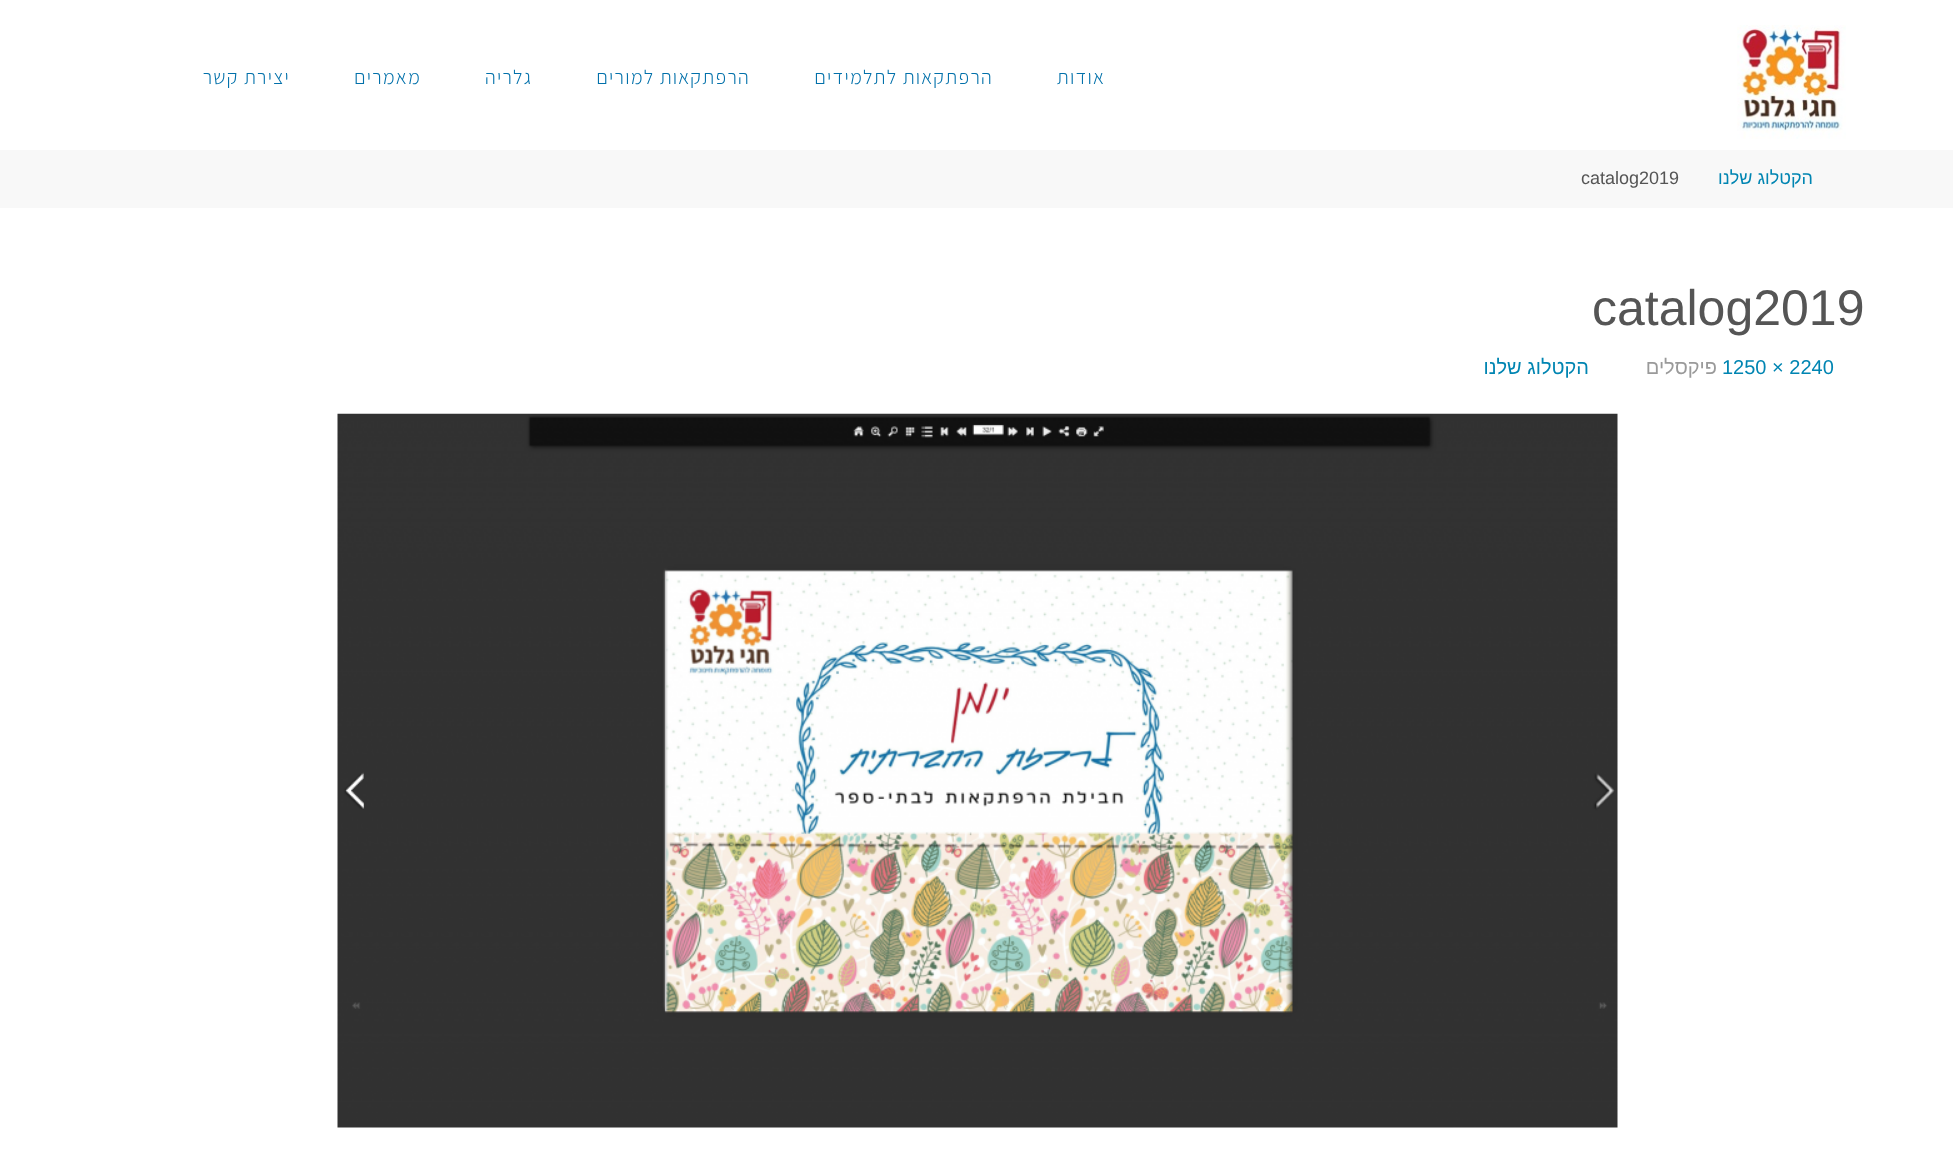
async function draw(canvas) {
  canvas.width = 1953;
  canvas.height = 1162;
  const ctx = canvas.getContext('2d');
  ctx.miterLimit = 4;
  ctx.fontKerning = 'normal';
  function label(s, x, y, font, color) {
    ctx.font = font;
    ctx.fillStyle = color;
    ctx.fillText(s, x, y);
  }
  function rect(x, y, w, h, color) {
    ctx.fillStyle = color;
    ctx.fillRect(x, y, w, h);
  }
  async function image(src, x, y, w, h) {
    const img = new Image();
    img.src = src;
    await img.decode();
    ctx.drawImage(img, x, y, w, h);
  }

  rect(0, 0, 1953, 1162, '#fff');
  await image('assets/img1.png', 1737, 25, 109, 114);
  ctx.letterSpacing = '1.25px';
  ctx.direction = 'rtl';
  label('אודות', 1105, 84, '300 20px Assistant', '#0170aa');
  label('הרפתקאות לתלמידים', 993, 84, '300 20px Assistant', '#0170aa');
  label('הרפתקאות למורים', 750, 84, '300 20px Assistant', '#0170aa');
  label('גלריה', 532, 84, '300 20px Assistant', '#0170aa');
  label('מאמרים', 421, 84, '300 20px Assistant', '#0170aa');
  label('יצירת קשר', 290, 84, '300 20px Assistant', '#0170aa');
  rect(0, 150, 1953, 58, '#f8f8f8');
  ctx.letterSpacing = '0px';
  label('הקטלוג שלנו', 1813, 184, '18px Liberation Sans', '#0085b2');
  ctx.direction = 'ltr';
  label('catalog2019', 1581, 184, '18px Liberation Sans', '#555');
  label('catalog2019', 1592, 325, '50px Liberation Sans', '#555');
  label('1250 × 2240', 1722, 374, '20px Liberation Sans', '#0085b2');
  ctx.direction = 'rtl';
  label('פיקסלים', 1717, 374, '20px Liberation Sans', '#9a9a9a');
  label('הקטלוג שלנו', 1589, 374, '20px Liberation Sans', '#0085b2');
  await image('assets/img2.png', 337, 413, 1281, 715);
}

draw(document.querySelector('canvas'));
